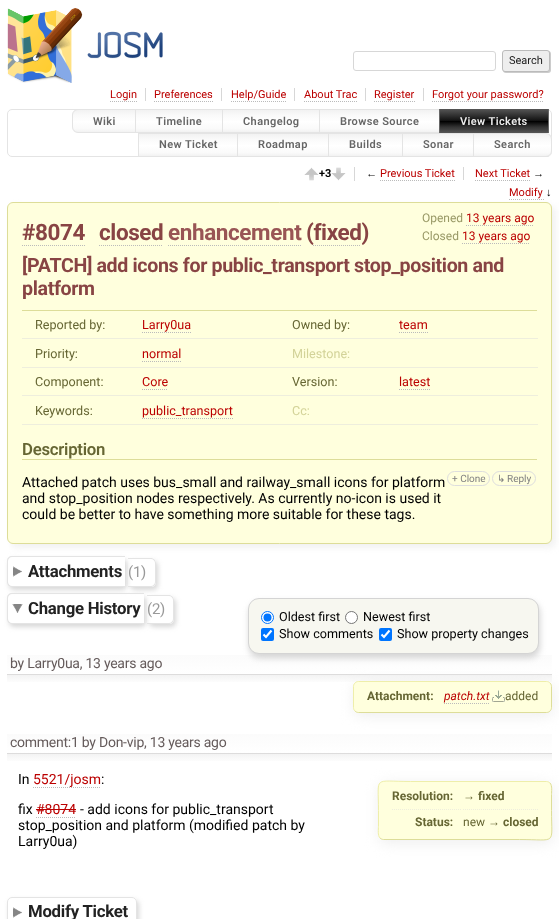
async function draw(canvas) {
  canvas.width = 559;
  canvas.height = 919;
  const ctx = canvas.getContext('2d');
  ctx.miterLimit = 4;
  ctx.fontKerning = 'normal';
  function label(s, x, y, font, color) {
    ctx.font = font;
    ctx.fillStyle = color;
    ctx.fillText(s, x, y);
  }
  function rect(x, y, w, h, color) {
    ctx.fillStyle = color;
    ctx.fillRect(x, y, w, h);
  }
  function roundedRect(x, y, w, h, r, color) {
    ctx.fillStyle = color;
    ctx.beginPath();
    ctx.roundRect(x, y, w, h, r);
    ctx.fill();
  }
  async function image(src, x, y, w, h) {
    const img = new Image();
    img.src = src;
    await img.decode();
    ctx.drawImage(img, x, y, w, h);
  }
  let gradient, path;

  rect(0, 0, 559, 919, '#fff');
  await image('assets/img1.png', 7, 8, 156, 75);
  ctx.beginPath();
  ctx.roundRect(353.5, 51.5, 142, 19, 2.5);
  ctx.strokeStyle = '#d7d7d7';
  ctx.stroke();
  ctx.fillStyle = '#ccc';
  ctx.filter = 'blur(0.5px)';
  ctx.beginPath();
  ctx.roundRect(503, 51, 48, 22, 3);
  ctx.fill();
  ctx.filter = 'none';
  ctx.fillStyle = '#eee';
  ctx.beginPath();
  ctx.roundRect(502.5, 50.5, 47, 21, 2.5);
  ctx.fill();
  ctx.strokeStyle = '#bbb';
  ctx.stroke();
  label('Search', 509, 64, '11px Roboto', '#222');
  rect(145, 88, 1, 13, '#d7d7d7');
  label('Login', 110, 98, '11px Roboto', '#b00');
  path = new Path2D('M110 101.5H137');
  ctx.setLineDash([1, 1]);
  ctx.stroke(path);
  rect(221, 88, 1, 13, '#d7d7d7');
  label('Preferences', 154, 98, '11px Roboto', '#b00');
  path = new Path2D('M154 101.5H213');
  ctx.stroke(path);
  rect(294, 88, 1, 13, '#d7d7d7');
  label('Help/Guide', 231, 98, '11px Roboto', '#b00');
  path = new Path2D('M231 101.5H286');
  ctx.stroke(path);
  rect(365, 88, 1, 13, '#d7d7d7');
  label('About Trac', 304, 98, '11px Roboto', '#b00');
  path = new Path2D('M304 101.5H357');
  ctx.stroke(path);
  rect(423, 88, 1, 13, '#d7d7d7');
  label('Register', 374, 98, '11px Roboto', '#b00');
  path = new Path2D('M374 101.5H415');
  ctx.stroke(path);
  label('Forgot your password?', 432, 98, '11px Roboto', '#b00');
  path = new Path2D('M432 101.5H544');
  ctx.stroke(path);
  ctx.beginPath();
  ctx.roundRect(7.5, 109.5, 544, 47, 4.5);
  ctx.strokeStyle = '#e4e4e4';
  ctx.setLineDash([]);
  ctx.stroke();
  ctx.save();
  ctx.beginPath();
  ctx.roundRect(72, 109, 65, 24, [6, 0, 0, 6]);
  ctx.clip();
  gradient = ctx.createLinearGradient(105, 110, 105, 132);
  gradient.addColorStop(0, '#f2f2f2');
  gradient.addColorStop(0.25, '#fafafa');
  gradient.addColorStop(0.49, '#fefefe');
  gradient.addColorStop(0.51, '#fff');
  gradient.addColorStop(0.85, '#fafafa');
  gradient.addColorStop(1, '#f2f2f2');
  ctx.fillStyle = gradient;
  ctx.fillRect(72, 110, 63, 22);
  ctx.restore();
  ctx.beginPath();
  ctx.roundRect(72.5, 109.5, 64, 23, [5.5, 0, 0, 5.5]);
  ctx.stroke();
  ctx.letterSpacing = '0.4px';
  label('Wiki', 93, 125, '600 11px Roboto', '#666');
  gradient = ctx.createLinearGradient(179, 110, 179, 132);
  gradient.addColorStop(0, '#f2f2f2');
  gradient.addColorStop(0.25, '#fafafa');
  gradient.addColorStop(0.49, '#fefefe');
  gradient.addColorStop(0.51, '#fff');
  gradient.addColorStop(0.85, '#fafafa');
  gradient.addColorStop(1, '#f2f2f2');
  ctx.fillStyle = gradient;
  ctx.fillRect(136, 110, 86, 22);
  ctx.strokeRect(135.5, 109.5, 87, 23);
  label('Timeline', 156, 125, '600 11px Roboto', '#666');
  gradient = ctx.createLinearGradient(272, 110, 272, 132);
  gradient.addColorStop(0, '#f2f2f2');
  gradient.addColorStop(0.25, '#fafafa');
  gradient.addColorStop(0.49, '#fefefe');
  gradient.addColorStop(0.51, '#fff');
  gradient.addColorStop(0.85, '#fafafa');
  gradient.addColorStop(1, '#f2f2f2');
  ctx.fillStyle = gradient;
  ctx.fillRect(223, 110, 96, 22);
  ctx.strokeRect(222.5, 109.5, 98, 23);
  label('Changelog', 243, 125, '600 11px Roboto', '#666');
  gradient = ctx.createLinearGradient(380, 110, 380, 132);
  gradient.addColorStop(0, '#f2f2f2');
  gradient.addColorStop(0.25, '#fafafa');
  gradient.addColorStop(0.49, '#fefefe');
  gradient.addColorStop(0.51, '#fff');
  gradient.addColorStop(0.85, '#fafafa');
  gradient.addColorStop(1, '#f2f2f2');
  ctx.fillStyle = gradient;
  ctx.fillRect(320, 110, 119, 22);
  ctx.strokeRect(319.5, 109.5, 120, 23);
  label('Browse Source', 340, 125, '600 11px Roboto', '#666');
  ctx.strokeStyle = '#666';
  ctx.strokeRect(439.5, 109.5, 109, 23);
  gradient = ctx.createLinearGradient(494, 109, 494, 133);
  gradient.addColorStop(0, '#555');
  gradient.addColorStop(0.25, '#333');
  gradient.addColorStop(0.49, '#111');
  gradient.addColorStop(0.51, '#000');
  gradient.addColorStop(0.75, '#333');
  gradient.addColorStop(1, '#555');
  ctx.fillStyle = gradient;
  ctx.fillRect(440, 109, 108, 24);
  label('View Tickets', 460, 125, '600 11px Roboto', '#eee');
  gradient = ctx.createLinearGradient(188, 134, 188, 156);
  gradient.addColorStop(0, '#f2f2f2');
  gradient.addColorStop(0.25, '#fafafa');
  gradient.addColorStop(0.49, '#fefefe');
  gradient.addColorStop(0.51, '#fff');
  gradient.addColorStop(0.85, '#fafafa');
  gradient.addColorStop(1, '#f2f2f2');
  ctx.fillStyle = gradient;
  ctx.fillRect(139, 134, 98, 22);
  ctx.strokeStyle = '#e4e4e4';
  ctx.strokeRect(138.5, 133.5, 99, 23);
  label('New Ticket', 159, 148, '600 11px Roboto', '#666');
  gradient = ctx.createLinearGradient(283, 134, 283, 156);
  gradient.addColorStop(0, '#f2f2f2');
  gradient.addColorStop(0.25, '#fafafa');
  gradient.addColorStop(0.49, '#fefefe');
  gradient.addColorStop(0.51, '#fff');
  gradient.addColorStop(0.85, '#fafafa');
  gradient.addColorStop(1, '#f2f2f2');
  ctx.fillStyle = gradient;
  ctx.fillRect(238, 134, 90, 22);
  ctx.strokeRect(237.5, 133.5, 91, 23);
  label('Roadmap', 258, 148, '600 11px Roboto', '#666');
  gradient = ctx.createLinearGradient(366, 134, 366, 156);
  gradient.addColorStop(0, '#f2f2f2');
  gradient.addColorStop(0.25, '#fafafa');
  gradient.addColorStop(0.49, '#fefefe');
  gradient.addColorStop(0.51, '#fff');
  gradient.addColorStop(0.85, '#fafafa');
  gradient.addColorStop(1, '#f2f2f2');
  ctx.fillStyle = gradient;
  ctx.fillRect(329, 134, 73, 22);
  ctx.strokeRect(328.5, 133.5, 74, 23);
  label('Builds', 349, 148, '600 11px Roboto', '#666');
  gradient = ctx.createLinearGradient(439, 134, 439, 156);
  gradient.addColorStop(0, '#f2f2f2');
  gradient.addColorStop(0.25, '#fafafa');
  gradient.addColorStop(0.49, '#fefefe');
  gradient.addColorStop(0.51, '#fff');
  gradient.addColorStop(0.85, '#fafafa');
  gradient.addColorStop(1, '#f2f2f2');
  ctx.fillStyle = gradient;
  ctx.fillRect(403, 134, 70, 22);
  ctx.strokeRect(402.5, 133.5, 72, 23);
  label('Sonar', 423, 148, '600 11px Roboto', '#666');
  ctx.save();
  ctx.beginPath();
  ctx.roundRect(473, 133, 79, 24, [0, 6, 6, 0]);
  ctx.clip();
  gradient = ctx.createLinearGradient(513, 134, 513, 156);
  gradient.addColorStop(0, '#f2f2f2');
  gradient.addColorStop(0.25, '#fafafa');
  gradient.addColorStop(0.49, '#fefefe');
  gradient.addColorStop(0.51, '#fff');
  gradient.addColorStop(0.85, '#fafafa');
  gradient.addColorStop(1, '#f2f2f2');
  ctx.fillStyle = gradient;
  ctx.fillRect(474, 134, 78, 22);
  ctx.restore();
  ctx.beginPath();
  ctx.roundRect(473.5, 133.5, 78, 23, [0, 5.5, 5.5, 0]);
  ctx.stroke();
  label('Search', 494, 148, '600 11px Roboto', '#666');
  rect(354, 167, 1, 14, '#d7d7d7');
  await image('assets/img2.png', 304, 167, 15, 14);
  ctx.letterSpacing = '0px';
  label('+3', 319, 177, 'bold 11px Roboto', '#000');
  await image('assets/img3.png', 331, 167, 15, 14);
  rect(463, 167, 1, 13, '#d7d7d7');
  label('←', 366, 177, '11px Liberation Sans', '#000');
  label('Previous Ticket', 380, 177, '11px Roboto', '#b00');
  path = new Path2D('M380 180.5H455');
  ctx.strokeStyle = '#bbb';
  ctx.setLineDash([1, 1]);
  ctx.stroke(path);
  label('Next Ticket', 475, 177, '11px Roboto', '#b00');
  path = new Path2D('M475 180.5H530');
  ctx.stroke(path);
  label('→', 533, 177, '11px Liberation Sans', '#000');
  label('Modify', 509, 196, '11px Roboto', '#b00');
  path = new Path2D('M509 199.5H544');
  ctx.stroke(path);
  label('↓', 546, 196, '11px Liberation Sans', '#000');
  ctx.save();
  path = new Path2D('M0 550H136V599H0ZM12 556H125V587H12C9 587 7 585 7 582V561C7 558 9 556 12 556Z');
  ctx.clip(path, 'evenodd');
  ctx.fillStyle = '#d7d7d7';
  ctx.filter = 'blur(2.5px)';
  ctx.beginPath();
  ctx.roundRect(9, 559, 118, 31, 5);
  ctx.fill();
  ctx.filter = 'none';
  ctx.restore();
  await image('assets/img4.png', 13, 566, 9, 11);
  ctx.fillStyle = '#e4e4e4';
  path = new Path2D('M12 556H125V587H12C9 587 7 585 7 582V561C7 558 9 556 12 556ZM12 557H125V586H12C10 586 8 584 8 582V561C8 559 10 557 12 557Z');
  ctx.fill(path, 'evenodd');
  ctx.fillStyle = '#f2f2f2';
  ctx.filter = 'blur(3px)';
  ctx.beginPath();
  ctx.roundRect(11, 206, 545, 342, 6);
  ctx.fill();
  ctx.filter = 'none';
  ctx.fillStyle = '#ffd';
  ctx.beginPath();
  ctx.roundRect(7.5, 202.5, 544, 341, 5.5);
  ctx.fill();
  ctx.strokeStyle = '#dd9';
  ctx.setLineDash([]);
  ctx.stroke();
  ctx.letterSpacing = '-0.4px';
  label('#8074', 22, 240, 'bold 22.5px Roboto', '#844');
  path = new Path2D('M22 245.5H85');
  ctx.strokeStyle = '#bbb';
  ctx.setLineDash([1, 1]);
  ctx.stroke(path);
  label('closed', 99, 240, 'bold 22.5px Roboto', '#844');
  path = new Path2D('M99 245.5H163');
  ctx.stroke(path);
  label('enhancement', 168, 240, 'bold 22.5px Roboto', '#955');
  path = new Path2D('M168 245.5H301');
  ctx.stroke(path);
  label('(fixed)', 306, 240, 'bold 22.5px Roboto', '#844');
  path = new Path2D('M313 245.5H361');
  ctx.stroke(path);
  ctx.letterSpacing = '0px';
  label('Opened', 422, 222, '12px Roboto', '#996');
  label('13 years ago', 466, 222, '12px Roboto', '#b00');
  path = new Path2D('M466 225.5H533');
  ctx.stroke(path);
  label('Closed', 422, 240, '12px Roboto', '#996');
  label('13 years ago', 462, 240, '12px Roboto', '#b00');
  path = new Path2D('M462 243.5H529');
  ctx.stroke(path);
  ctx.letterSpacing = '-0.35px';
  label('[PATCH] add icons for public_transport stop_position and', 22, 272, 'bold 19.6px Roboto', '#844');
  label('platform', 22, 295, 'bold 19.6px Roboto', '#844');
  rect(22, 310, 515, 1, '#dd9');
  rect(22, 338, 516, 1, '#eed');
  ctx.letterSpacing = '0px';
  label('Reported by:', 35, 329, '12.6px Roboto', '#663');
  label('Larry0ua', 142, 329, '12.6px Roboto', '#b00');
  path = new Path2D('M142 332.5H191');
  ctx.stroke(path);
  label('Owned by:', 292, 329, '12.6px Roboto', '#663');
  label('team', 399, 329, '12.6px Roboto', '#b00');
  path = new Path2D('M399 332.5H428');
  ctx.stroke(path);
  rect(22, 367, 516, 1, '#eed');
  label('Priority:', 35, 358, '12.6px Roboto', '#663');
  label('normal', 142, 358, '12.6px Roboto', '#b00');
  path = new Path2D('M142 361.5H181');
  ctx.stroke(path);
  label('Milestone:', 292, 358, '12.6px Roboto', '#d3d398');
  rect(22, 395, 516, 1, '#eed');
  label('Component:', 35, 386, '12.6px Roboto', '#663');
  label('Core', 142, 386, '12.6px Roboto', '#b00');
  path = new Path2D('M142 389.5H168');
  ctx.stroke(path);
  label('Version:', 292, 386, '12.6px Roboto', '#663');
  label('latest', 399, 386, '12.6px Roboto', '#b00');
  path = new Path2D('M399 389.5H431');
  ctx.stroke(path);
  rect(22, 424, 516, 1, '#eed');
  label('Keywords:', 35, 415, '12.6px Roboto', '#663');
  label('public_transport', 142, 415, '12.6px Roboto', '#b00');
  path = new Path2D('M142 418.5H233');
  ctx.stroke(path);
  label('Cc:', 292, 415, '12.6px Roboto', '#d3d398');
  rect(22, 459, 515, 1, '#dd9');
  ctx.letterSpacing = '-0.25px';
  label('Description', 22, 455, '600 16.75px Roboto', '#663');
  ctx.letterSpacing = '0px';
  label('Attached patch uses bus_small and railway_small icons for platform', 22, 487, '14px Roboto', '#000');
  label('and stop_position nodes respectively. As currently no-icon is used it', 22, 503, '14px Roboto', '#000');
  label('could be better to have something more suitable for these tags.', 22, 519, '14px Roboto', '#000');
  ctx.beginPath();
  ctx.roundRect(447.5, 471.5, 42, 14, 7);
  ctx.strokeStyle = '#ddd';
  ctx.setLineDash([]);
  ctx.stroke();
  label('+ Clone', 452, 482, '10px Roboto', '#808080');
  ctx.beginPath();
  ctx.roundRect(492.5, 471.5, 43, 14, 7);
  ctx.stroke();
  label('↳', 497, 482, '10px DejaVu Sans', '#808080');
  label('Reply', 507, 482, '10px Roboto', '#808080');
  ctx.save();
  path = new Path2D('M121 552H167V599H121ZM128 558H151C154 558 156 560 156 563V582C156 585 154 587 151 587H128Z');
  ctx.clip(path, 'evenodd');
  ctx.fillStyle = '#d7d7d7';
  ctx.filter = 'blur(2.5px)';
  ctx.beginPath();
  ctx.roundRect(130, 561, 28, 29, 5);
  ctx.fill();
  ctx.filter = 'none';
  ctx.restore();
  ctx.letterSpacing = '-0.25px';
  label('Attachments', 28, 577, 'bold 16.75px Roboto', '#222');
  ctx.fillStyle = '#e4e4e4';
  path = new Path2D('M128 558H151C153.5 558 156 560.5 156 563V582C156 584.5 153.5 587 151 587H128ZM128 559H151C153 559 155 561 155 563V582C155 584 153 586 151 586H128Z');
  ctx.fill(path, 'evenodd');
  label('(1)', 128, 577, '15px Roboto', '#999');
  ctx.save();
  path = new Path2D('M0 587H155V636H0ZM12 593H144V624H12C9 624 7 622 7 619V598C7 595 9 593 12 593Z');
  ctx.clip(path, 'evenodd');
  ctx.fillStyle = '#d7d7d7';
  ctx.filter = 'blur(2.5px)';
  ctx.beginPath();
  ctx.roundRect(9, 596, 137, 31, 5);
  ctx.fill();
  ctx.filter = 'none';
  ctx.restore();
  await image('assets/img5.png', 12, 604, 11, 9);
  ctx.fillStyle = '#e4e4e4';
  path = new Path2D('M12 593H144V624H12C9 624 7 622 7 619V598C7 595 9 593 12 593ZM12 594H144V623H12C10 623 8 621 8 619V598C8 596 10 594 12 594Z');
  ctx.fill(path, 'evenodd');
  ctx.save();
  path = new Path2D('M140 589H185V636H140ZM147 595H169C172 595 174 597 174 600V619C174 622 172 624 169 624H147Z');
  ctx.clip(path, 'evenodd');
  ctx.fillStyle = '#d7d7d7';
  ctx.filter = 'blur(2.5px)';
  ctx.beginPath();
  ctx.roundRect(149, 598, 27, 29, 5);
  ctx.fill();
  ctx.filter = 'none';
  ctx.restore();
  label('Change History', 28, 614, 'bold 16.75px Roboto', '#222');
  ctx.fillStyle = '#e4e4e4';
  path = new Path2D('M147 595H169C171.5 595 174 597.5 174 600V619C174 621.5 171.5 624 169 624H147ZM147 596H169C171 596 173 598 173 600V619C173 621 171 623 169 623H147Z');
  ctx.fill(path, 'evenodd');
  label('(2)', 147, 614, '15px Roboto', '#999');
  gradient = ctx.createLinearGradient(280, 685, 280, 655);
  gradient.addColorStop(0, '#fff');
  gradient.addColorStop(0.14, '#fbfbfb');
  gradient.addColorStop(0.33, '#f3f3f3');
  gradient.addColorStop(0.37, '#c7c5c5');
  gradient.addColorStop(0.37, '#fff');
  gradient.addColorStop(1, '#fbfbfb');
  ctx.fillStyle = gradient;
  ctx.fillRect(7, 655, 545, 27);
  ctx.fillStyle = '#d4d4d4';
  ctx.filter = 'blur(3px)';
  ctx.beginPath();
  ctx.roundRect(249, 602, 291, 56, 11);
  ctx.fill();
  ctx.filter = 'none';
  ctx.fillStyle = '#f7f7f0';
  ctx.beginPath();
  ctx.roundRect(248.5, 598.5, 290, 55, 10.5);
  ctx.fill();
  ctx.strokeStyle = '#d4d4d4';
  ctx.stroke();
  ctx.fillStyle = '#fff';
  ctx.beginPath();
  ctx.arc(267.5, 617.5, 6, 0, 2 * Math.PI);
  ctx.fill();
  ctx.strokeStyle = '#0075ff';
  ctx.stroke();
  ctx.fillStyle = '#0075ff';
  ctx.beginPath();
  ctx.arc(267.5, 617.5, 4, 0, 2 * Math.PI);
  ctx.fill();
  ctx.letterSpacing = '0px';
  label('Oldest first', 279, 621, '12.6px Roboto', '#000');
  ctx.fillStyle = '#fff';
  ctx.beginPath();
  ctx.arc(351.5, 617.5, 6, 0, 2 * Math.PI);
  ctx.fill();
  ctx.strokeStyle = '#767676';
  ctx.stroke();
  label('Newest first', 363, 621, '12.6px Roboto', '#000');
  roundedRect(261, 628, 13, 13, 2, '#0075ff');
  path = new Path2D('M263.5 634.5L266 637L271.5 630.5');
  ctx.strokeStyle = '#fff';
  ctx.lineWidth = 2.1;
  ctx.stroke(path);
  label('Show comments', 279, 638, '12.6px Roboto', '#000');
  roundedRect(379, 628, 13, 13, 2, '#0075ff');
  path = new Path2D('M381.5 634.5L384 637L389.5 630.5');
  ctx.stroke(path);
  label('Show property changes', 397, 638, '12.6px Roboto', '#000');
  ctx.letterSpacing = '-0.25px';
  label('by Larry0ua, 13 years ago', 10, 668, '14px Roboto', '#655b5b');
  gradient = ctx.createLinearGradient(280, 764, 280, 734);
  gradient.addColorStop(0, '#fff');
  gradient.addColorStop(0.14, '#fbfbfb');
  gradient.addColorStop(0.33, '#f3f3f3');
  gradient.addColorStop(0.37, '#c7c5c5');
  gradient.addColorStop(0.37, '#fff');
  gradient.addColorStop(1, '#fbfbfb');
  ctx.fillStyle = gradient;
  ctx.fillRect(7, 734, 545, 27);
  ctx.fillStyle = '#eee';
  ctx.filter = 'blur(7px)';
  ctx.beginPath();
  ctx.roundRect(354, 684, 199, 32, 6);
  ctx.fill();
  ctx.filter = 'none';
  roundedRect(353, 681, 199, 32, 6, '#ffd');
  path = new Path2D('M550 683C551 684 551.5 685 551.5 686.5V707.5C551.5 709 551 710 550 711C549 712 548 712.5 546.5 712.5H358.5C357 712.5 356 712 355 711');
  ctx.strokeStyle = '#dd9';
  ctx.lineWidth = 1;
  ctx.stroke(path);
  path = new Path2D('M355 711C354 710 353.5 709 353.5 707.5V686.5C353.5 685 354 684 355 683C356 682 357 681.5 358.5 681.5H546.5C548 681.5 549 682 550 683');
  ctx.strokeStyle = '#eea';
  ctx.stroke(path);
  ctx.letterSpacing = '0px';
  label('Attachment:', 367, 700, 'bold 12px Roboto', '#663');
  label('patch.txt', 444, 700, 'italic 12px Roboto', '#b00');
  path = new Path2D('M444 703.5H489');
  ctx.strokeStyle = '#bbb';
  ctx.setLineDash([1, 1]);
  ctx.stroke(path);
  await image('assets/img6.png', 492, 690, 13, 12);
  label('added', 505, 700, '12px Roboto', '#663');
  ctx.letterSpacing = '-0.25px';
  label('comment:1 by Don-vip, 13 years ago', 10, 747, '14px Roboto', '#655b5b');
  ctx.letterSpacing = '0px';
  label('In', 18, 784, '14px Roboto', '#000');
  label('5521/josm', 33, 784, '14px Roboto', '#b00');
  path = new Path2D('M33 787.5H101');
  ctx.stroke(path);
  label(':', 101, 784, '14px Roboto', '#000');
  label('fix', 18, 814, '14px Roboto', '#000');
  label('#8074', 36, 814, '14px Roboto', '#b00');
  path = new Path2D('M36 817.5H76');
  ctx.stroke(path);
  rect(36, 809, 40, 1, '#b00');
  label('- add icons for public_transport', 80, 814, '14px Roboto', '#000');
  label('stop_position and platform (modified patch by', 18, 830, '14px Roboto', '#000');
  label('Larry0ua)', 18, 846, '14px Roboto', '#000');
  ctx.fillStyle = '#eee';
  ctx.filter = 'blur(7px)';
  ctx.beginPath();
  ctx.roundRect(379, 784, 174, 59, 6);
  ctx.fill();
  ctx.filter = 'none';
  roundedRect(378, 781, 174, 59, 6, '#ffd');
  path = new Path2D('M550 783C552.5 785.5 551.5 792 551.5 794.5V810.5C551.5 846 557.5 839.5 519.5 839.5H383.5C382.5 839.5 381 839 380 838');
  ctx.strokeStyle = '#dd9';
  ctx.setLineDash([]);
  ctx.stroke(path);
  path = new Path2D('M380 838C377.5 835.5 378.5 829 378.5 826.5V810.5C378.5 775 372.5 781.5 410.5 781.5H546.5C547.5 781.5 549 782 550 783');
  ctx.strokeStyle = '#eea';
  ctx.stroke(path);
  label('Resolution:', 392, 800, 'bold 12px Roboto', '#663');
  label('→', 463, 800, '12px Liberation Sans', '#663');
  label('fixed', 478, 800, 'bold 12px Roboto', '#663');
  path = new Path2D('M392 809.5H461');
  ctx.strokeStyle = '#eed';
  ctx.setLineDash([1, 1]);
  ctx.stroke(path);
  label('Status:', 415, 826, 'bold 12px Roboto', '#663');
  path = new Path2D('M463 809.5H538');
  ctx.stroke(path);
  label('new', 463, 826, '12px Roboto', '#663');
  label('→', 488, 826, '12px Liberation Sans', '#663');
  label('closed', 503, 826, 'bold 12px Roboto', '#663');
  ctx.save();
  path = new Path2D('M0 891H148V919H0ZM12 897H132C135 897 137 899 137 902V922C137 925 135 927 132 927H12C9 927 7 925 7 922V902C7 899 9 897 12 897Z');
  ctx.clip(path, 'evenodd');
  ctx.fillStyle = '#d7d7d7';
  ctx.filter = 'blur(2.5px)';
  ctx.beginPath();
  ctx.roundRect(9, 900, 130, 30, 5);
  ctx.fill();
  ctx.filter = 'none';
  ctx.restore();
  await image('assets/img4.png', 13, 907, 9, 11);
  ctx.beginPath();
  ctx.roundRect(7.5, 897.5, 129, 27, 4.5);
  ctx.strokeStyle = '#e4e4e4';
  ctx.setLineDash([]);
  ctx.stroke();
  ctx.letterSpacing = '-0.25px';
  label('Modify Ticket', 28, 917, 'bold 16.75px Roboto', '#222');
}

draw(document.querySelector('canvas'));
